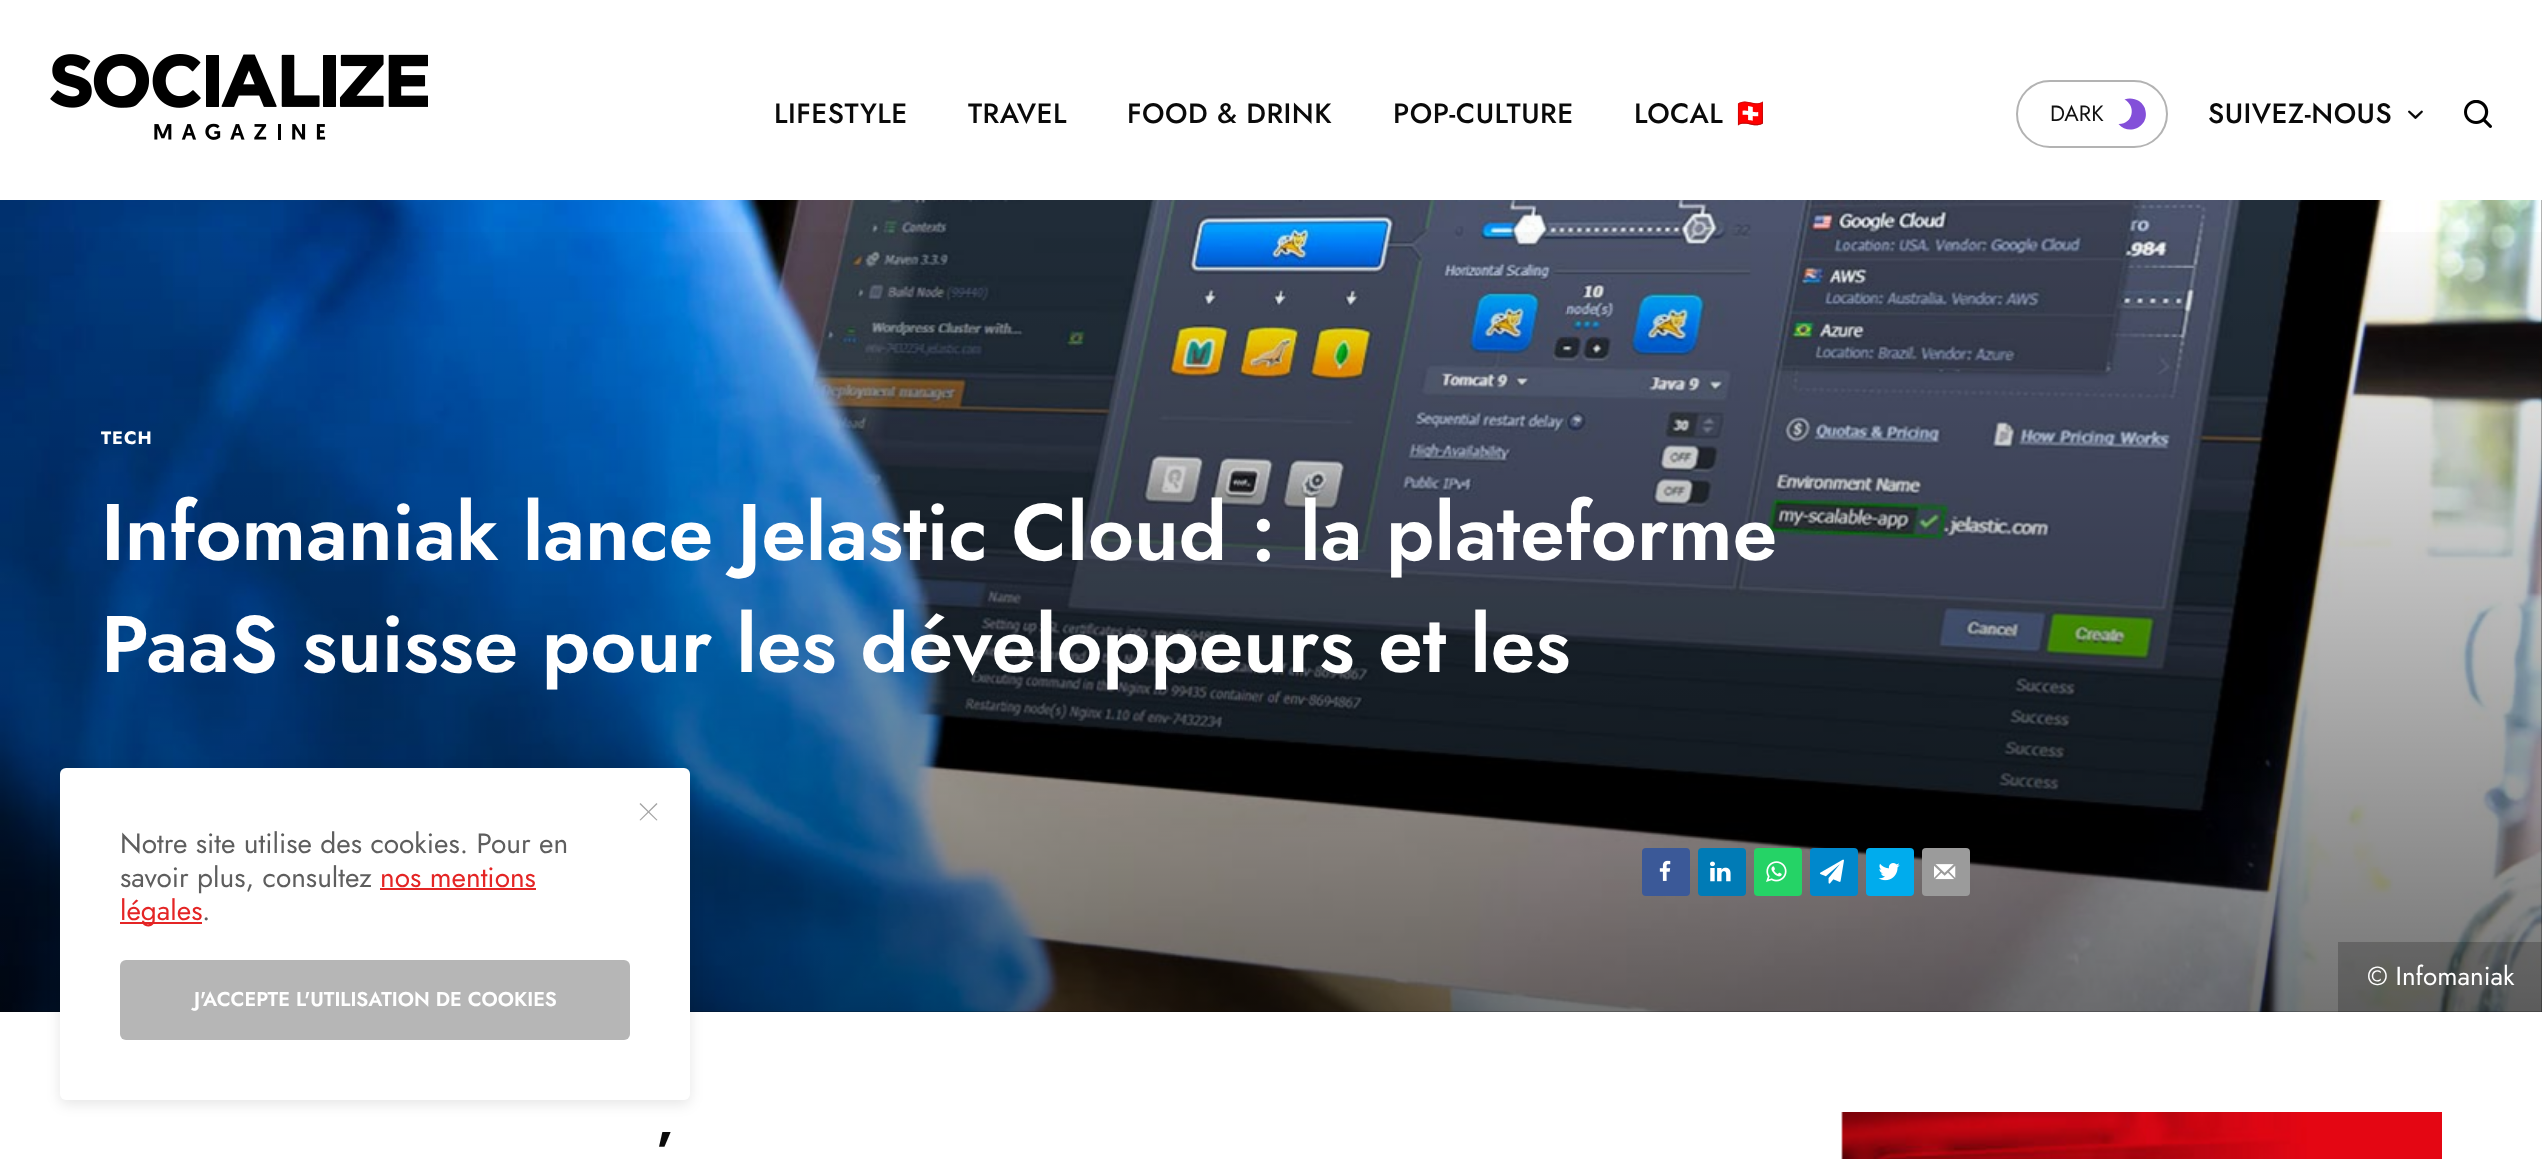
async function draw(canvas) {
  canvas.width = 2542;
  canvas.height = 1159;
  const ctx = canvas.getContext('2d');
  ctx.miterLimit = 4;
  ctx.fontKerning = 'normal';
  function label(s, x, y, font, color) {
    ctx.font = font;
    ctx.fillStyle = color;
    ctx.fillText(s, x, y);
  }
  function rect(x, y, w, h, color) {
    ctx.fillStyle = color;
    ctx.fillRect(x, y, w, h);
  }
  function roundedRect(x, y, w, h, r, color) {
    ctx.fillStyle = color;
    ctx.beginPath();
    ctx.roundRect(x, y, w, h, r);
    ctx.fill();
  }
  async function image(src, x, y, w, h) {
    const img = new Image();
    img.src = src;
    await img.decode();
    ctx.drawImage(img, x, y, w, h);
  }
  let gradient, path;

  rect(0, 0, 2542, 1159, '#fff');
  await image('assets/img1.png', 50, 54, 378, 86);
  ctx.letterSpacing = '0.5px';
  label('LIFESTYLE', 774, 123, '500 28px Jost', '#0a0a0a');
  label('TRAVEL', 968, 123, '500 28px Jost', '#0a0a0a');
  label('FOOD & DRINK', 1127, 123, '500 28px Jost', '#0a0a0a');
  label('POP-CULTURE', 1393, 123, '500 28px Jost', '#0a0a0a');
  label('LOCAL', 1634, 123, '500 28px Jost', '#0a0a0a');
  label('🇨🇭', 1733, 123, '28px Noto Color Emoji', '#0a0a0a');
  ctx.beginPath();
  ctx.roundRect(2017, 81, 150, 66, 33);
  ctx.strokeStyle = '#b3b3b3';
  ctx.lineWidth = 2;
  ctx.stroke();
  ctx.letterSpacing = '0px';
  label('DARK', 2050, 121, '22px Jost', '#111');
  ctx.fillStyle = '#834fd9';
  path = new Path2D('M2119 124C2133 124 2136.5 106 2124.5 99.5C2129 97.5 2135 98.5 2139 101C2142.5 103.5 2145 107 2145.5 111C2149 127 2128.5 136 2118.5 124Z');
  ctx.fill(path);
  ctx.letterSpacing = '0.5px';
  label('SUIVEZ-NOUS', 2208, 123, '500 28px Jost', '#0a0a0a');
  await image('assets/img2.png', 2408, 110, 15, 9);
  await image('assets/img3.png', 2464, 100, 28, 28);
  rect(0, 200, 2542, 812, '#090909');
  await image('assets/img10.png', 0, 200, 2542, 812);
  gradient = ctx.createLinearGradient(1271, 200, 1271, 1012);
  gradient.addColorStop(0, '#00000000');
  gradient.addColorStop(1, '#0000008c');
  ctx.fillStyle = gradient;
  ctx.fillRect(0, 232, 2542, 780);
  ctx.letterSpacing = '1px';
  label('TECH', 101, 444, 'bold 18px Jost', '#fff');
  ctx.letterSpacing = '0px';
  label('Infomaniak lance Jelastic Cloud : la plateforme', 101, 560, '600 80px Jost', '#fff');
  label('PaaS suisse pour les développeurs et les', 101, 672, '600 80px Jost', '#fff');
  roundedRect(1642, 848, 48, 48, 4, '#3b5998');
  await image('assets/img4.png', 1659, 860, 12, 21);
  roundedRect(1698, 848, 48, 48, 4, '#007bb6');
  await image('assets/img5.png', 1710, 861, 21, 21);
  roundedRect(1754, 848, 48, 48, 4, '#25d366');
  await image('assets/img6.png', 1766, 861, 21, 21);
  roundedRect(1810, 848, 48, 48, 4, '#08c');
  await image('assets/img7.png', 1820, 859, 24, 25);
  roundedRect(1866, 848, 48, 48, 4, '#00aced');
  await image('assets/img8.png', 1878, 863, 22, 18);
  roundedRect(1922, 848, 48, 48, 4, '#9b9b9b');
  await image('assets/img9.png', 1934, 864, 22, 16);
  rect(2338, 942, 204, 70, '#00000033');
  label('© Infomaniak', 2367, 985, '26px Jost', '#fff');
  label('’', 656, 1174, '600 60px Jost', '#0a0a0a');
  await image('assets/img11.png', 1841, 1112, 601, 47);
  ctx.fillStyle = '#0000001a';
  ctx.filter = 'blur(7px)';
  ctx.beginPath();
  ctx.roundRect(60, 772, 630, 332, 6);
  ctx.fill();
  ctx.filter = 'none';
  roundedRect(60, 768, 630, 332, 6, '#fff');
  ctx.fillStyle = '#a3a3a3';
  path = new Path2D('M640.5 803L657.5 820L656.5 820.5L639.5 804Z');
  ctx.fill(path);
  path = new Path2D('M639.5 820L656.5 803L657.5 804L640.5 820.5Z');
  ctx.fill(path);
  label('Notre site utilise des cookies. Pour en', 120, 853, '28px Jost', '#5e5e5e');
  label('savoir plus, consultez', 120, 887, '28px Jost', '#5e5e5e');
  label('nos mentions', 380, 887, '28px Jost', '#e42525');
  rect(380, 888, 156, 2, '#e42525');
  rect(120, 922, 82, 2, '#e42525');
  label('légales', 120, 920, '28px Jost', '#e42525');
  label('.', 202, 920, '28px Jost', '#5e5e5e');
  roundedRect(120, 960, 510, 80, 6, '#b6b6b6');
  label('J\'ACCEPTE L\'UTILISATION DE COOKIES', 194, 1006, '600 20px Jost', '#fff');
}

draw(document.querySelector('canvas'));
